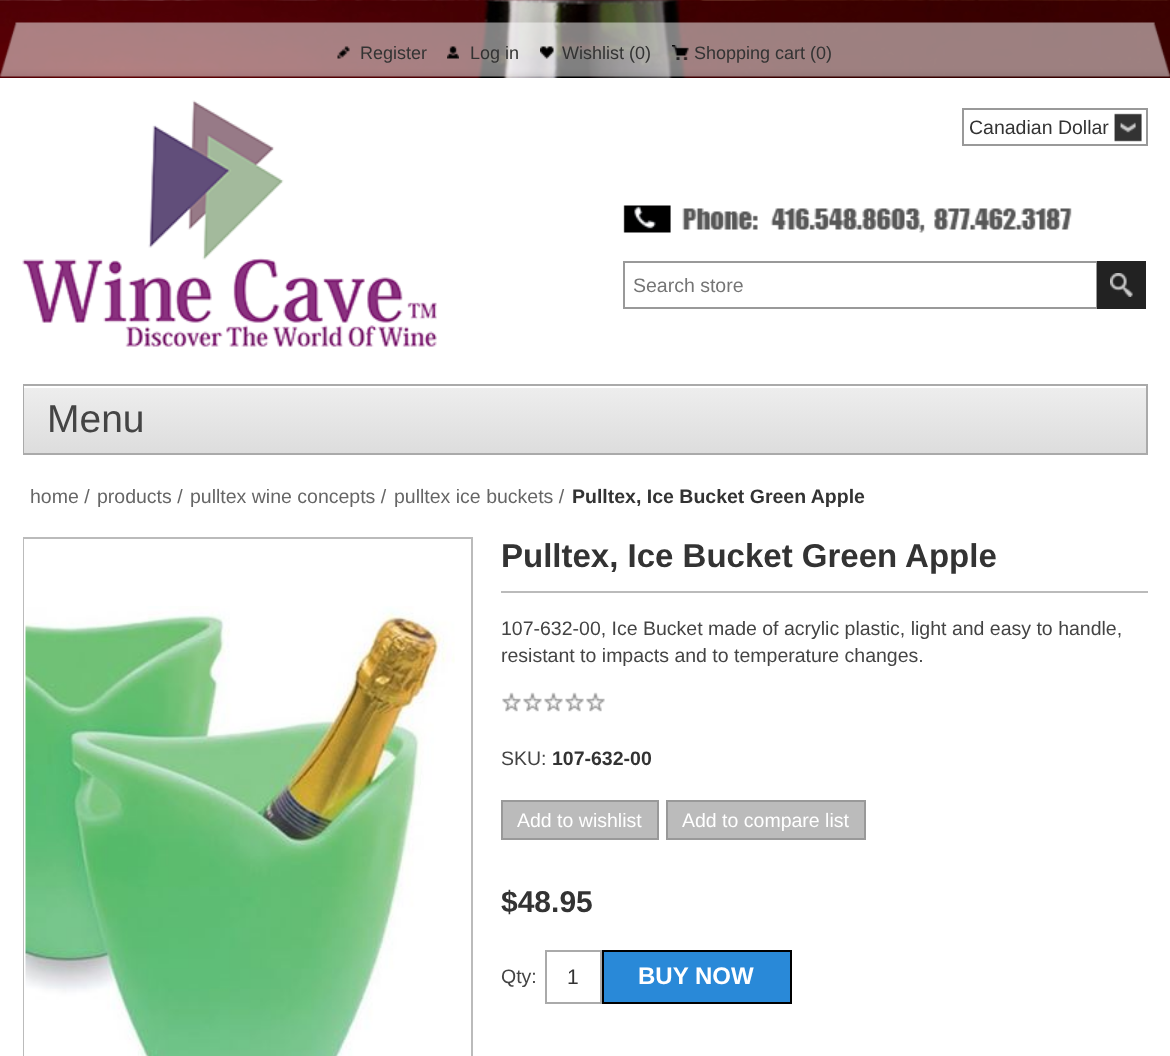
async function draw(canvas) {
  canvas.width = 1170;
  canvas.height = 1056;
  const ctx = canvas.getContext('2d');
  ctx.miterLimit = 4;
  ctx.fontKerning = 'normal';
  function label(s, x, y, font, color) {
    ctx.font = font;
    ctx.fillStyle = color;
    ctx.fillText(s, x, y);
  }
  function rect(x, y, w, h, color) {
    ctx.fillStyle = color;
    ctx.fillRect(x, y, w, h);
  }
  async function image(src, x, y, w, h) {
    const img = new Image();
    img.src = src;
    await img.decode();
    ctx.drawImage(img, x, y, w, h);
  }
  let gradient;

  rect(0, 0, 1170, 1056, '#fff');
  await image('assets/img1.png', 0, 0, 1170, 78);
  await image('assets/img2.png', 0, 22, 1170, 55);
  await image('assets/img3.png', 337, 46, 13, 13);
  label('Register', 360, 59, '18px Liberation Sans', '#333');
  await image('assets/img4.png', 447, 46, 12, 13);
  label('Log in', 470, 59, '18px Liberation Sans', '#333');
  await image('assets/img5.png', 540, 46, 14, 13);
  label('Wishlist (0)', 562, 59, '18px Liberation Sans', '#333');
  await image('assets/img6.png', 672, 45, 17, 15);
  label('Shopping cart (0)', 694, 59, '18px Liberation Sans', '#333');
  ctx.fillStyle = '#00000033';
  ctx.filter = 'blur(4px)';
  ctx.beginPath();
  ctx.rect(0, 78, 1170, 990);
  ctx.fill();
  ctx.filter = 'none';
  rect(0, 78, 1170, 978, '#fff');
  await image('assets/img7.png', 22, 100, 415, 247);
  await image('assets/img8.png', 1114, 113, 28, 29);
  ctx.strokeStyle = '#999';
  ctx.lineWidth = 2;
  ctx.strokeRect(963, 109, 184, 36);
  label('Canadian Dollar', 969, 134, '19.5px Liberation Sans', '#333');
  await image('assets/img9.png', 623, 205, 449, 28);
  ctx.strokeRect(624, 262, 473, 46);
  label('Search store', 633, 292, '19.5px Liberation Sans', '#757575');
  rect(1097, 261, 49, 48, '#222');
  await image('assets/img10.png', 1110, 273, 23, 24);
  ctx.strokeStyle = '#aaa';
  ctx.strokeRect(24, 385, 1123, 69);
  gradient = ctx.createLinearGradient(585, 385, 585, 453);
  gradient.addColorStop(0, '#eee');
  gradient.addColorStop(1, '#ddd');
  ctx.fillStyle = gradient;
  ctx.fillRect(24, 388, 1122, 65);
  rect(24, 386, 1, 2, '#fff');
  label('Menu', 47, 432, '39px Liberation Sans', '#444');
  label('home /', 30, 503, '19.5px Liberation Sans', '#666');
  label('products /', 97, 503, '19.5px Liberation Sans', '#666');
  label('pulltex wine concepts /', 190, 503, '19.5px Liberation Sans', '#666');
  label('pulltex ice buckets /', 394, 503, '19.5px Liberation Sans', '#666');
  ctx.save();
  ctx.beginPath();
  ctx.rect(23, 485, 1125, 22);
  ctx.clip();
  label('Pulltex, Ice Bucket Green Apple', 572, 503, 'bold 19.5px Liberation Sans', '#333');
  ctx.restore();
  ctx.strokeStyle = '#bbb';
  ctx.strokeRect(24, 538, 448, 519);
  ctx.strokeStyle = '#fff';
  ctx.strokeRect(25, 540, 445, 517);
  await image('assets/img11.png', 25, 606, 430, 450);
  rect(501, 591, 647, 2, '#bbb');
  label('Pulltex, Ice Bucket Green Apple', 501, 567, 'bold 33px Liberation Sans', '#333');
  label('107-632-00, Ice Bucket made of acrylic plastic, light and easy to handle,', 501, 635, '19.5px Liberation Sans', '#444');
  label('resistant to impacts and to temperature changes.', 501, 662, '19.5px Liberation Sans', '#444');
  await image('assets/img12.png', 502, 692, 103, 20);
  label('SKU:', 501, 765, '19.5px Liberation Sans', '#444');
  label('107-632-00', 552, 765, 'bold 19.5px Liberation Sans', '#333');
  ctx.fillStyle = '#bbb';
  ctx.beginPath();
  ctx.rect(502, 801, 156, 38);
  ctx.fill();
  ctx.strokeStyle = '#999';
  ctx.stroke();
  label('Add to wishlist', 517, 827, '19.5px Liberation Sans', '#fff');
  ctx.fillStyle = '#bbb';
  ctx.beginPath();
  ctx.rect(667, 801, 198, 38);
  ctx.fill();
  ctx.stroke();
  label('Add to compare list', 682, 827, '19.5px Liberation Sans', '#fff');
  label('$48.95', 501, 912, 'bold 30px Liberation Sans', '#333');
  label('Qty:', 501, 983, '19.5px Liberation Sans', '#444');
  ctx.strokeStyle = '#aaa';
  ctx.strokeRect(546, 951, 55, 52);
  label('1', 567, 984, '21px Liberation Sans', '#333');
  ctx.fillStyle = '#2989d8';
  ctx.beginPath();
  ctx.rect(603, 951, 188, 52);
  ctx.fill();
  ctx.strokeStyle = '#000';
  ctx.stroke();
  label('BUY NOW', 638, 984, 'bold 24px Liberation Sans', '#fff');
}

draw(document.querySelector('canvas'));
